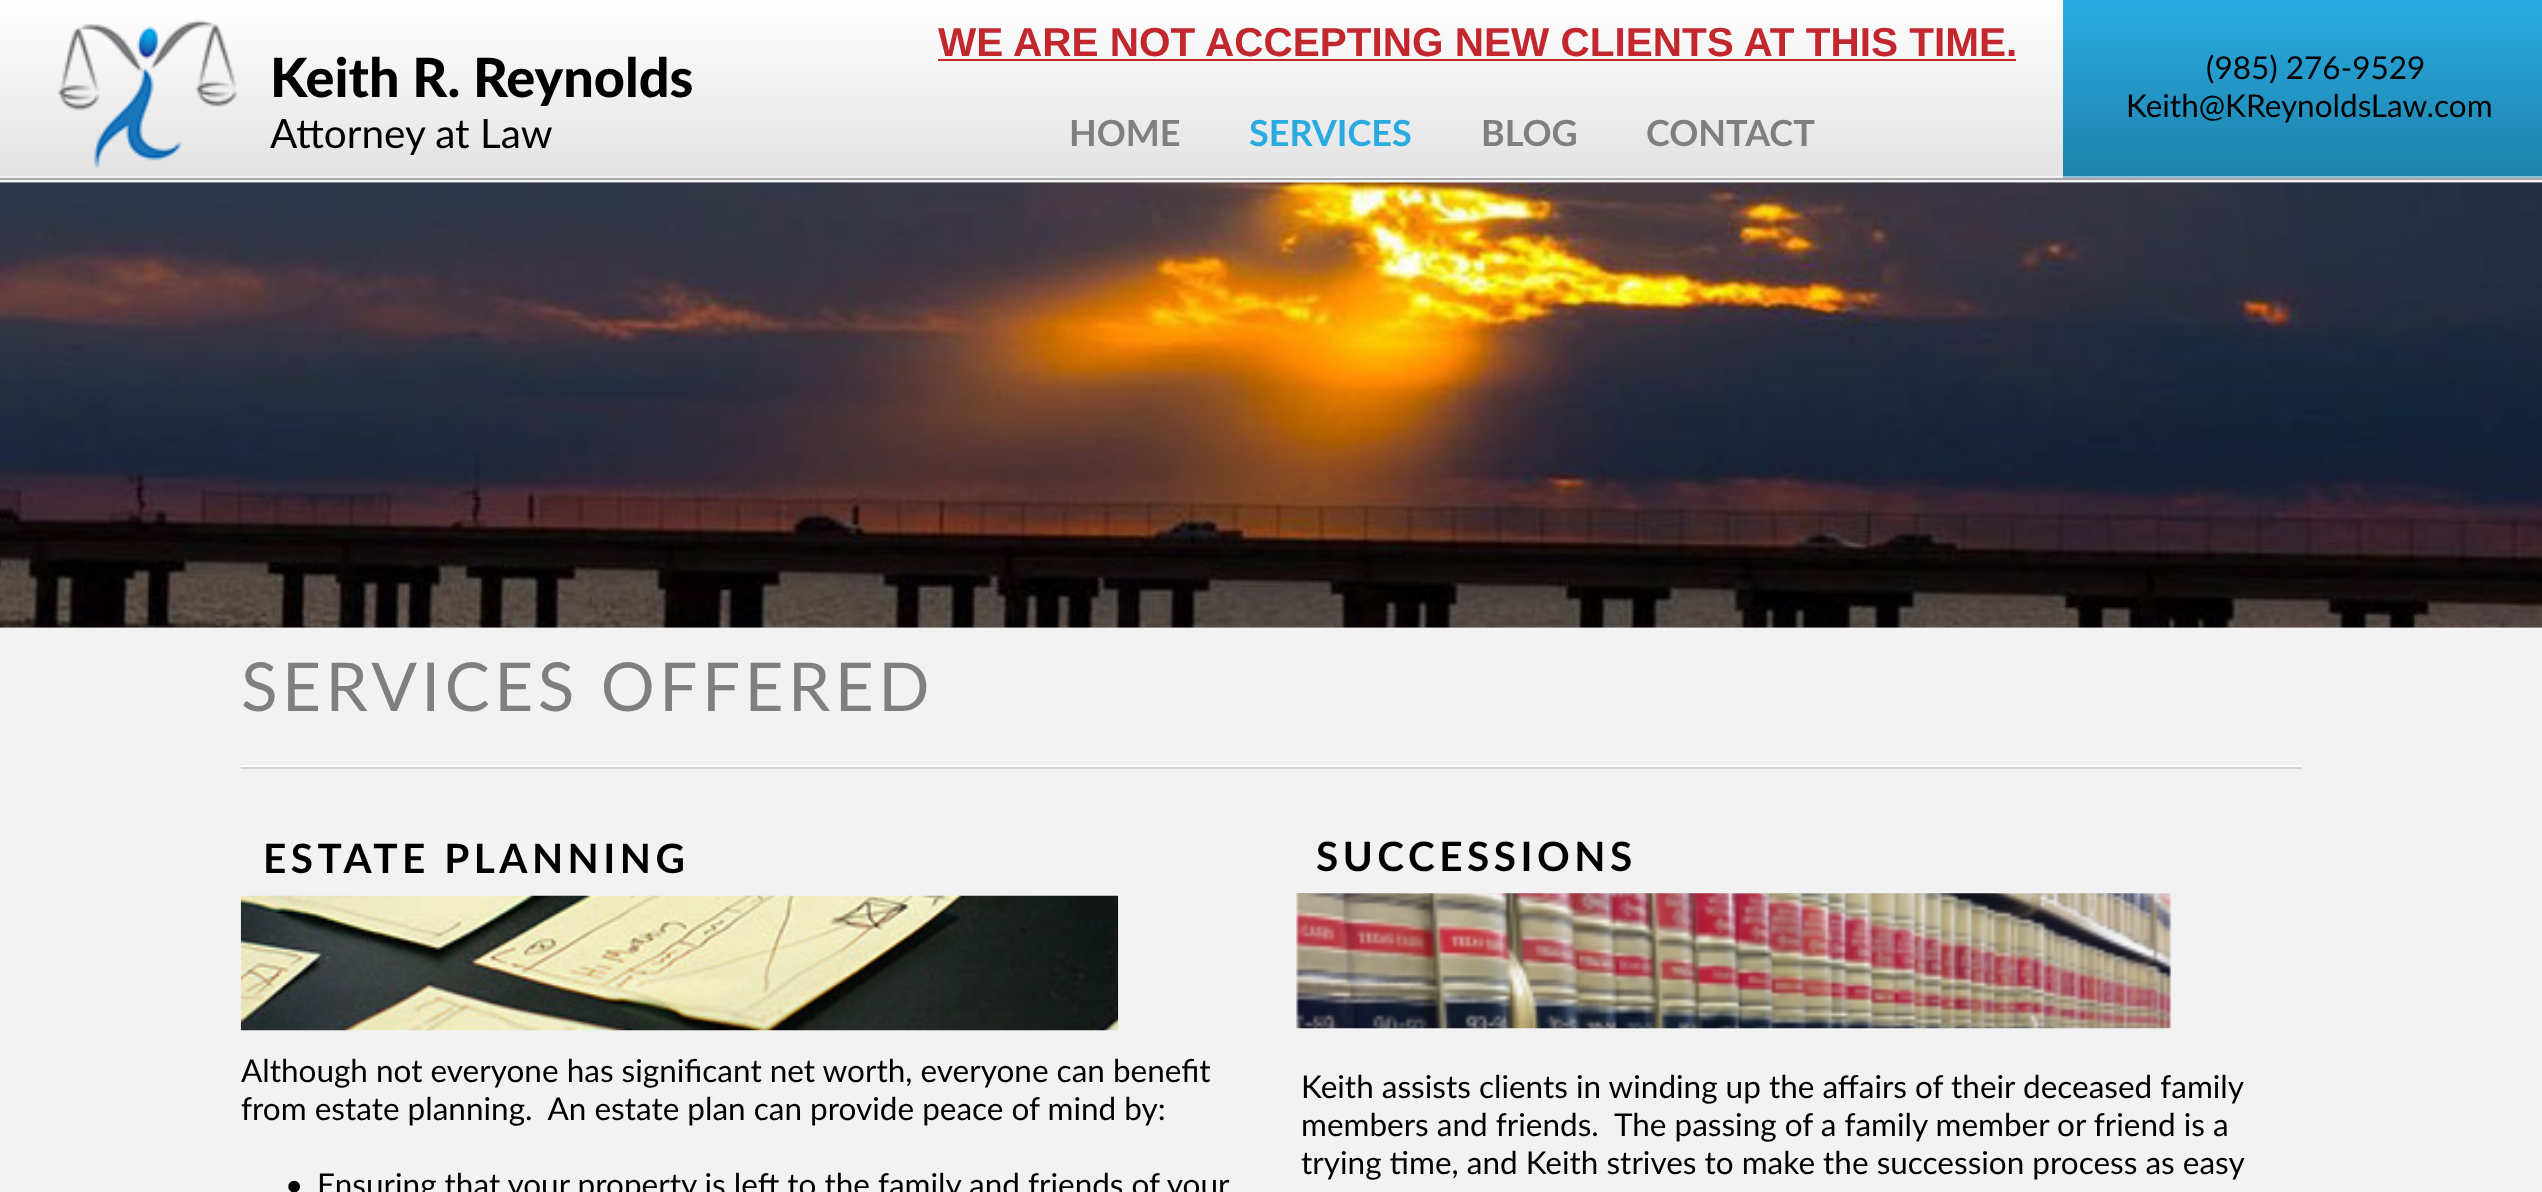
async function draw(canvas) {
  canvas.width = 2542;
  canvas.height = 1192;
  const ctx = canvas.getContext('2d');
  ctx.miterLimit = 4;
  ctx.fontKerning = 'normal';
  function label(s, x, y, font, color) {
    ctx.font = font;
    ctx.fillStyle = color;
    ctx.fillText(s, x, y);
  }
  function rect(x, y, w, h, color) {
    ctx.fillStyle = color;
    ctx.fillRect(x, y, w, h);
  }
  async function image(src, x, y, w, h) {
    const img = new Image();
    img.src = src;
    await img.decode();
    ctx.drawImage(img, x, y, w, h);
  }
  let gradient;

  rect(0, 0, 2542, 1192, '#f2f2f2');
  gradient = ctx.createLinearGradient(1271, 0, 1271, 180);
  gradient.addColorStop(0, '#fff');
  gradient.addColorStop(1, '#e2e2e2');
  ctx.fillStyle = gradient;
  ctx.fillRect(0, 0, 2063, 176);
  label('WE ARE NOT ACCEPTING NEW CLIENTS AT THIS TIME.', 938, 56, 'bold 40.5px Liberation Sans', '#c1272d');
  rect(938, 59, 1078, 2, '#c1272d');
  await image('assets/img1.png', 0, 182, 2542, 446);
  ctx.letterSpacing = '4.5px';
  label('SERVICES OFFERED', 241, 711, '67.5px Lato', '#7f7f7f');
  rect(241, 765, 2061, 2, '#fff');
  rect(241, 767, 2061, 2, '#d1d1d1');
  label('ESTATE PLANNING', 263, 873, 'bold 40.5px Lato', '#000');
  label('SUCCESSIONS', 1316, 871, 'bold 40.5px Lato', '#000');
  await image('assets/img2.png', 240, 895, 879, 136);
  await image('assets/img3.png', 1296, 893, 876, 136);
  ctx.letterSpacing = '0px';
  label('Although not everyone has significant net worth, everyone can benefit', 241, 1082, '31.5px Lato', '#000');
  label('from estate planning.  An estate plan can provide peace of mind by:', 241, 1120, '31.5px Lato', '#000');
  label('•', 285, 1196, '31.5px Lato', '#000');
  label('Ensuring that your property is left to the family and friends of your', 317, 1196, '31.5px Lato', '#000');
  label('Keith assists clients in winding up the affairs of their deceased family', 1301, 1098, '31.5px Lato', '#000');
  label('members and friends.  The passing of a family member or friend is a', 1301, 1136, '31.5px Lato', '#000');
  label('trying time, and Keith strives to make the succession process as easy', 1301, 1174, '31.5px Lato', '#000');
  gradient = ctx.createLinearGradient(2303, 0, 2303, 178);
  gradient.addColorStop(0, '#29abe2');
  gradient.addColorStop(1, '#1e82ab');
  ctx.fillStyle = gradient;
  ctx.fillRect(2063, 0, 479, 176);
  gradient = ctx.createLinearGradient(2303, 0, 2303, 178);
  gradient.addColorStop(0, '#94d5f1');
  gradient.addColorStop(1, '#8fc1d5');
  ctx.fillStyle = gradient;
  ctx.fillRect(2063, 176, 479, 2);
  await image('assets/img4.png', 58, 19, 179, 150);
  label('Keith R. Reynolds', 270, 97, '900 54px Lato', '#000');
  label('Attorney at Law', 270, 148, '40.5px Lato', '#000');
  label('HOME', 1069, 146, 'bold 36px Lato', '#7f7f7f');
  label('SERVICES', 1249, 146, 'bold 36px Lato', '#29abe2');
  label('BLOG', 1481, 146, 'bold 36px Lato', '#7f7f7f');
  label('CONTACT', 1646, 146, 'bold 36px Lato', '#7f7f7f');
  label('(985) 276-9529', 2206, 79, '31.5px Lato', '#000');
  label('Keith@KReynoldsLaw.com', 2126, 117, '31.5px Lato', '#000');
  rect(0, 178, 2542, 2, '#a8a8a8');
}

draw(document.querySelector('canvas'));
